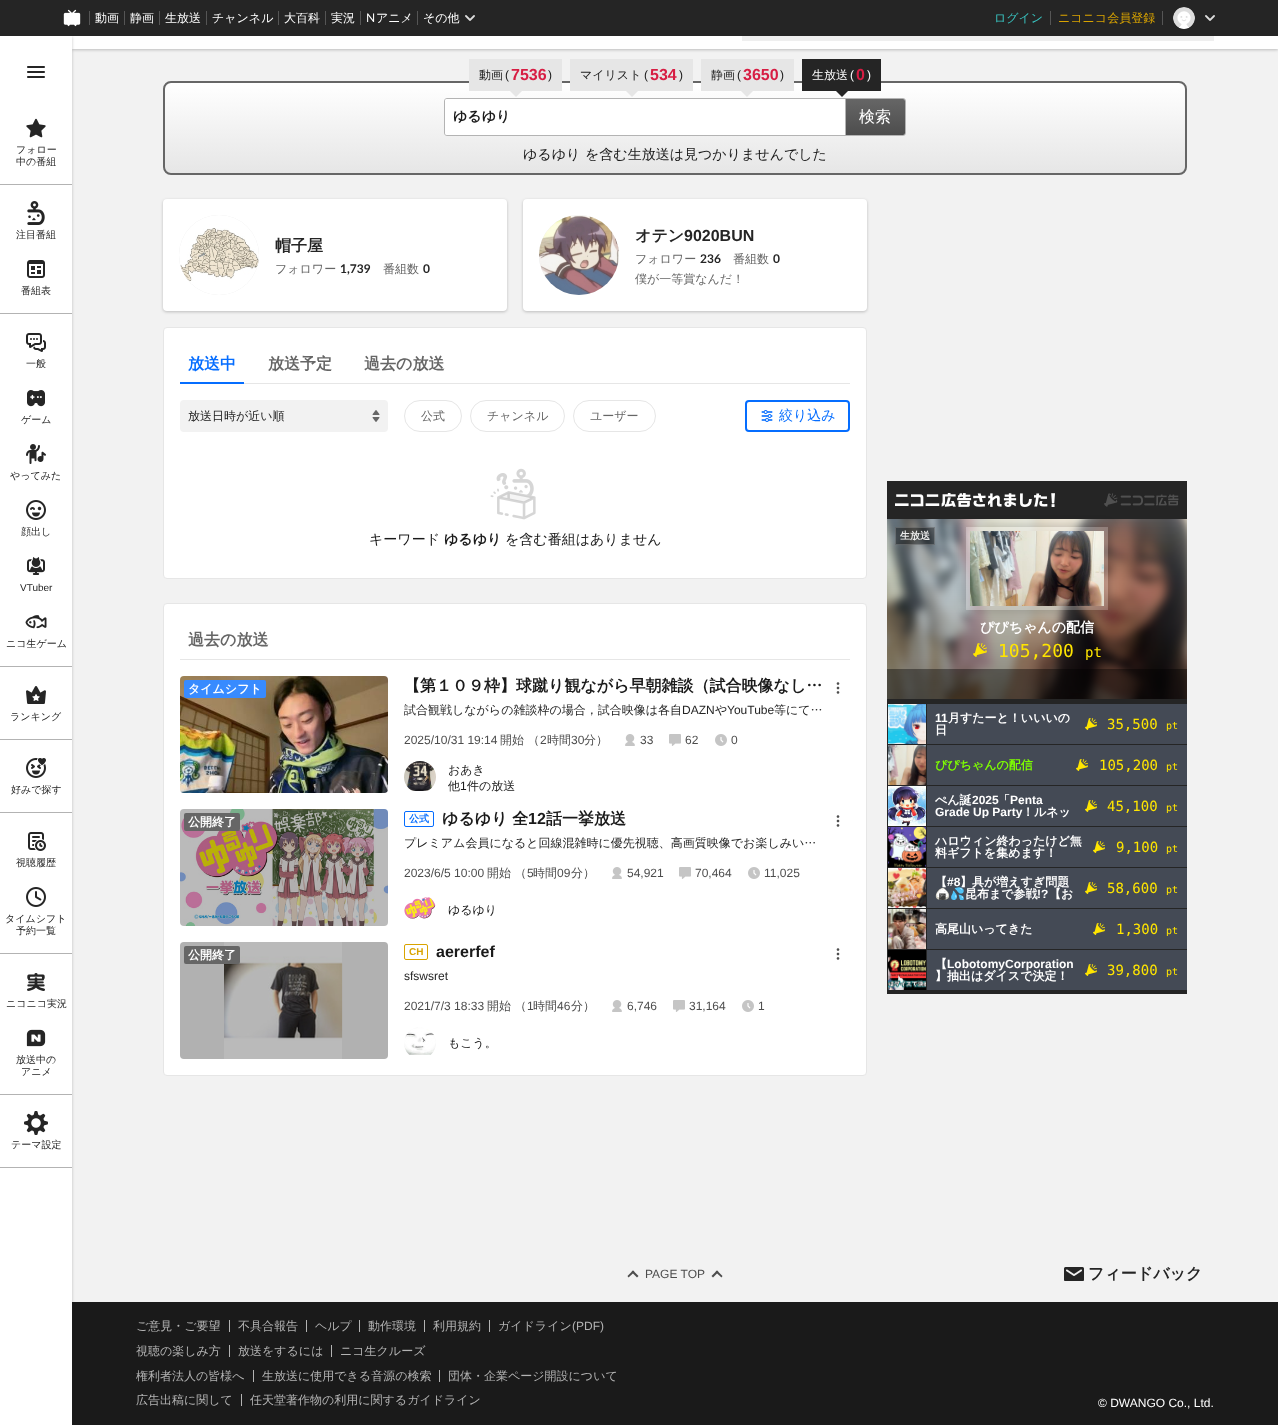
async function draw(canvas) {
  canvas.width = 1278;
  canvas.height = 1425;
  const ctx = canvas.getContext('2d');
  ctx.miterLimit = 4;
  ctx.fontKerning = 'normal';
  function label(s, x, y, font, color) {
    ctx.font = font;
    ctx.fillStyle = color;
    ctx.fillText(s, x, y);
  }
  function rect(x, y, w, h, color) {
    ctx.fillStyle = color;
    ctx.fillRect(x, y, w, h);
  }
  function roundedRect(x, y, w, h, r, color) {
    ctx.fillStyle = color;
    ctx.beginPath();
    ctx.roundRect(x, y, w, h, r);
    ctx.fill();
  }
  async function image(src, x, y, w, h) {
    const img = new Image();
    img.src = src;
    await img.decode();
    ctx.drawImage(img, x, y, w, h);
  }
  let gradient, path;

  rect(0, 0, 1278, 1425, '#f2f2f2');
  ctx.fillStyle = '#1a1a1a40';
  ctx.filter = 'blur(1.5px)';
  ctx.beginPath();
  ctx.rect(72, -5, 1206, 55);
  ctx.fill();
  ctx.filter = 'none';
  rect(72, 36, 1206, 13, '#fff');
  rect(72, 1302, 1206, 123, '#1a1a1a');
  ctx.fillStyle = '#1a1a1a40';
  ctx.filter = 'blur(1.5px)';
  ctx.beginPath();
  ctx.rect(0, 37, 72, 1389);
  ctx.fill();
  ctx.filter = 'none';
  rect(0, 0, 1278, 36, '#252525');
  await image('assets/img1.png', 63, 9, 18, 18);
  rect(89, 11, 1, 14, '#555');
  label('動画', 95, 22, '500 12px WenQuanYi Zen Hei', '#fff');
  rect(124, 11, 1, 14, '#555');
  label('静画', 130, 22, '500 12px WenQuanYi Zen Hei', '#fff');
  rect(159, 11, 1, 14, '#555');
  label('生放送', 165, 22, '500 12px WenQuanYi Zen Hei', '#fff');
  rect(206, 11, 1, 14, '#555');
  label('チャンネル', 212, 22, '500 12px WenQuanYi Zen Hei', '#fff');
  rect(278, 11, 1, 14, '#555');
  label('大百科', 284, 22, '500 12px WenQuanYi Zen Hei', '#fff');
  rect(325, 11, 1, 14, '#555');
  label('実況', 331, 22, '500 12px WenQuanYi Zen Hei', '#fff');
  rect(360, 11, 1, 14, '#555');
  label('N', 366, 22, '12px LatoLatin', '#fff');
  label('アニメ', 376, 22, '500 12px WenQuanYi Zen Hei', '#fff');
  rect(417, 11, 1, 14, '#555');
  label('その他', 423, 22, '500 12px WenQuanYi Zen Hei', '#fff');
  await image('assets/img2.png', 465, 15, 10, 6);
  label('ログイン', 994, 22, '500 12px WenQuanYi Zen Hei', '#39c4c1');
  rect(1050, 11, 1, 14, '#555');
  label('ニコニコ会員登録', 1058, 22, '500 12px WenQuanYi Zen Hei', '#d9a300');
  rect(1162, 11, 1, 14, '#555');
  await image('assets/img3.png', 1173, 7, 22, 22);
  await image('assets/img2.png', 1205, 15, 10, 6);
  rect(0, 36, 72, 1389, '#fff');
  await image('assets/img4.png', 27, 66, 18, 12);
  await image('assets/img5.png', 26, 118, 20, 20);
  label('フォロー', 16, 153, '500 10px WenQuanYi Zen Hei', '#252525');
  label('中の番組', 16, 165, '500 10px WenQuanYi Zen Hei', '#252525');
  rect(0, 184, 72, 1, '#b3b3b3');
  await image('assets/img6.png', 27, 201, 18, 24);
  label('注目番組', 16, 238, '500 10px WenQuanYi Zen Hei', '#252525');
  await image('assets/img7.png', 27, 260, 18, 18);
  label('番組表', 21, 294, '500 10px WenQuanYi Zen Hei', '#252525');
  rect(0, 313, 72, 1, '#b3b3b3');
  await image('assets/img8.png', 26, 333, 20, 19);
  label('一般', 26, 367, '500 10px WenQuanYi Zen Hei', '#252525');
  await image('assets/img9.png', 27, 390, 18, 17);
  label('ゲーム', 21, 423, '500 10px WenQuanYi Zen Hei', '#252525');
  await image('assets/img10.png', 26, 444, 20, 20);
  label('やってみた', 10, 479, '500 10px WenQuanYi Zen Hei', '#252525');
  await image('assets/img11.png', 26, 500, 20, 20);
  label('顔出し', 21, 535, '500 10px WenQuanYi Zen Hei', '#252525');
  await image('assets/img12.png', 27, 557, 18, 18);
  label('VTuber', 20, 591, '10px Liberation Sans', '#252525');
  await image('assets/img13.png', 25, 615, 22, 14);
  label('ニコ生ゲーム', 6, 647, '500 10px WenQuanYi Zen Hei', '#252525');
  rect(0, 666, 72, 1, '#b3b3b3');
  await image('assets/img14.png', 26, 686, 20, 18);
  label('ランキング', 10, 720, '500 10px WenQuanYi Zen Hei', '#252525');
  rect(0, 739, 72, 1, '#b3b3b3');
  await image('assets/img15.png', 26, 758, 20, 20);
  label('好みで探す', 11, 793, '500 10px WenQuanYi Zen Hei', '#252525');
  rect(0, 812, 72, 1, '#b3b3b3');
  await image('assets/img16.png', 28, 832, 18, 19);
  label('視聴履歴', 16, 866, '500 10px WenQuanYi Zen Hei', '#252525');
  await image('assets/img17.png', 26, 887, 20, 20);
  label('タイムシフト', 5, 922, '500 10px WenQuanYi Zen Hei', '#252525');
  label('予約一覧', 16, 934, '500 10px WenQuanYi Zen Hei', '#252525');
  rect(0, 953, 72, 1, '#b3b3b3');
  await image('assets/img18.png', 27, 973, 18, 18);
  label('ニコニコ実況', 6, 1007, '500 10px WenQuanYi Zen Hei', '#252525');
  await image('assets/img19.png', 26, 1029, 20, 18);
  label('放送中の', 16, 1063, '500 10px WenQuanYi Zen Hei', '#252525');
  label('アニメ', 21, 1075, '500 10px WenQuanYi Zen Hei', '#252525');
  rect(0, 1094, 72, 1, '#b3b3b3');
  await image('assets/img20.png', 24, 1111, 24, 24);
  label('テーマ設定', 11, 1148, '500 10px WenQuanYi Zen Hei', '#252525');
  rect(0, 1167, 72, 1, '#b3b3b3');
  rect(742, 36, 472, 5, '#efefef');
  ctx.save();
  ctx.beginPath();
  ctx.roundRect(163, 81, 1024, 94, 8);
  ctx.clip();
  gradient = ctx.createLinearGradient(675, 83, 675, 173);
  gradient.addColorStop(0, '#fff');
  gradient.addColorStop(1, '#e6e6e6');
  ctx.fillStyle = gradient;
  ctx.fillRect(163, 83, 1024, 90);
  ctx.restore();
  ctx.beginPath();
  ctx.roundRect(164, 82, 1022, 92, 7);
  ctx.strokeStyle = '#666';
  ctx.lineWidth = 2;
  ctx.stroke();
  rect(469, 59, 93, 32, '#e6e6e6');
  label('動画', 479, 79, '500 12px WenQuanYi Zen Hei', '#1a1a1a');
  label('(', 505, 79, '12px Liberation Sans', '#1a1a1a');
  label('7536', 511, 80, 'bold 16px Liberation Sans', '#d71d43');
  label(')', 548, 79, '12px Liberation Sans', '#1a1a1a');
  ctx.fillStyle = '#e6e6e6';
  path = new Path2D('M510 91H522L516 97Z');
  ctx.fill(path);
  rect(570, 59, 123, 32, '#e6e6e6');
  label('マイリスト', 580, 79, '500 12px WenQuanYi Zen Hei', '#1a1a1a');
  label('(', 644, 79, '12px Liberation Sans', '#1a1a1a');
  label('534', 650, 80, 'bold 16px Liberation Sans', '#d71d43');
  label(')', 679, 79, '12px Liberation Sans', '#1a1a1a');
  ctx.fillStyle = '#e6e6e6';
  path = new Path2D('M626 91H638L632 97Z');
  ctx.fill(path);
  rect(701, 59, 93, 32, '#e6e6e6');
  label('静画', 711, 79, '500 12px WenQuanYi Zen Hei', '#1a1a1a');
  label('(', 737, 79, '12px Liberation Sans', '#1a1a1a');
  label('3650', 743, 80, 'bold 16px Liberation Sans', '#d71d43');
  label(')', 780, 79, '12px Liberation Sans', '#1a1a1a');
  ctx.fillStyle = '#e6e6e6';
  path = new Path2D('M741 91H753L747 97Z');
  ctx.fill(path);
  rect(802, 59, 79, 32, '#252525');
  label('生放送', 812, 79, '500 12px WenQuanYi Zen Hei', '#fff');
  label('(', 850, 79, '12px Liberation Sans', '#fff');
  label('0', 856, 80, 'bold 16px Liberation Sans', '#d71d43');
  label(')', 867, 79, '12px Liberation Sans', '#fff');
  ctx.fillStyle = '#252525';
  path = new Path2D('M836 91H848L842 97Z');
  ctx.fill(path);
  ctx.beginPath();
  ctx.roundRect(844.5, 98.5, 61, 37, [0, 2.5, 2.5, 0]);
  ctx.strokeStyle = '#b3b3b3';
  ctx.lineWidth = 1;
  ctx.stroke();
  gradient = ctx.createLinearGradient(875, 99, 875, 135);
  gradient.addColorStop(0, '#666');
  gradient.addColorStop(1, '#4d4d4d');
  ctx.fillStyle = gradient;
  ctx.beginPath();
  ctx.roundRect(845, 99, 60, 36, [0, 2, 2, 0]);
  ctx.fill();
  ctx.beginPath();
  ctx.roundRect(444.5, 98.5, 401, 37, [2.5, 0, 0, 2.5]);
  ctx.stroke();
  ctx.fillStyle = '#fff';
  ctx.beginPath();
  ctx.roundRect(445, 99, 400, 36, [2, 0, 0, 2]);
  ctx.fill();
  label('ゆるゆり', 453, 121, 'bold 14px WenQuanYi Zen Hei', '#1a1a1a');
  label('検索', 859, 122, '500 16px WenQuanYi Zen Hei', '#fff');
  label('ゆるゆり', 523, 159, '500 14px WenQuanYi Zen Hei', '#1a1a1a');
  ctx.save();
  ctx.beginPath();
  ctx.rect(165, 147, 1020, 14);
  ctx.clip();
  label('を含む生放送は見つかりませんでした', 585, 159, '500 14px WenQuanYi Zen Hei', '#1a1a1a');
  ctx.restore();
  ctx.fillStyle = '#1a1a1a40';
  ctx.filter = 'blur(1.5px)';
  ctx.beginPath();
  ctx.roundRect(163, 200, 344, 112, 4);
  ctx.fill();
  ctx.filter = 'none';
  roundedRect(163, 199, 344, 112, 4, '#fff');
  ctx.fillStyle = '#e6e6e6';
  ctx.beginPath();
  ctx.arc(219, 255, 40, 0, 2 * Math.PI);
  ctx.fill();
  await image('assets/img21.png', 179, 215, 80, 80);
  label('帽子屋', 275, 251, 'bold 16px WenQuanYi Zen Hei', '#252525');
  label('フォロワー', 275, 273, '500 12px WenQuanYi Zen Hei', '#666');
  label('1,739', 340, 273, 'bold 12px LatoLatin', '#252525');
  label('番組数', 383, 273, '500 12px WenQuanYi Zen Hei', '#666');
  label('0', 423, 273, 'bold 12px LatoLatin', '#252525');
  ctx.fillStyle = '#1a1a1a40';
  ctx.filter = 'blur(1.5px)';
  ctx.beginPath();
  ctx.roundRect(523, 200, 344, 112, 4);
  ctx.fill();
  ctx.filter = 'none';
  roundedRect(523, 199, 344, 112, 4, '#fff');
  ctx.fillStyle = '#e6e6e6';
  ctx.beginPath();
  ctx.arc(579, 255, 40, 0, 2 * Math.PI);
  ctx.fill();
  await image('assets/img22.png', 539, 215, 80, 80);
  label('オテン', 635, 241, 'bold 16px WenQuanYi Zen Hei', '#252525');
  label('9020BUN', 684, 241, 'bold 16px Liberation Sans', '#252525');
  label('フォロワー', 635, 263, '500 12px WenQuanYi Zen Hei', '#666');
  label('236', 700, 263, 'bold 12px LatoLatin', '#252525');
  label('番組数', 733, 263, '500 12px WenQuanYi Zen Hei', '#666');
  label('0', 773, 263, 'bold 12px LatoLatin', '#252525');
  label('僕が一等賞なんだ！', 635, 283, '500 12px WenQuanYi Zen Hei', '#666');
  ctx.fillStyle = '#fff';
  ctx.beginPath();
  ctx.roundRect(163.5, 327.5, 703, 251, 3.5);
  ctx.fill();
  ctx.strokeStyle = '#e6e6e6';
  ctx.stroke();
  rect(244, 383, 606, 1, '#e6e6e6');
  rect(180, 382, 64, 2, '#056dff');
  label('放送中', 188, 369, 'bold 16px WenQuanYi Zen Hei', '#056dff');
  label('放送予定', 268, 369, 'bold 16px WenQuanYi Zen Hei', '#666');
  label('過去の放送', 364, 369, 'bold 16px WenQuanYi Zen Hei', '#666');
  roundedRect(180, 400, 208, 32, 4, '#f2f2f2');
  await image('assets/img23.png', 372, 410, 8, 12);
  label('放送日時が近い順', 188, 420, '500 12px WenQuanYi Zen Hei', '#1a1a1a');
  ctx.beginPath();
  ctx.roundRect(404.5, 400.5, 57, 31, 15.5);
  ctx.stroke();
  label('公式', 421, 420, '500 12px WenQuanYi Zen Hei', '#666');
  ctx.beginPath();
  ctx.roundRect(470.5, 400.5, 94, 31, 15.5);
  ctx.stroke();
  label('チャンネル', 487, 420, '500 12px WenQuanYi Zen Hei', '#666');
  ctx.beginPath();
  ctx.roundRect(573.5, 400.5, 82, 31, 15.5);
  ctx.stroke();
  label('ユーザー', 590, 420, '500 12px WenQuanYi Zen Hei', '#666');
  ctx.beginPath();
  ctx.roundRect(746, 401, 103, 30, 3);
  ctx.strokeStyle = '#056dff';
  ctx.lineWidth = 2;
  ctx.stroke();
  await image('assets/img24.png', 761, 410, 12, 12);
  label('絞り込み', 779, 420, '500 14px WenQuanYi Zen Hei', '#056dff');
  await image('assets/img25.png', 490, 468, 46, 52);
  label('キーワード', 369, 544, '500 14px WenQuanYi Zen Hei', '#1a1a1a');
  label('ゆるゆり', 444, 544, 'bold 14px WenQuanYi Zen Hei', '#1a1a1a');
  label('を含む番組はありません', 505, 544, '500 14px WenQuanYi Zen Hei', '#1a1a1a');
  ctx.fillStyle = '#fff';
  ctx.beginPath();
  ctx.roundRect(163.5, 603.5, 703, 472, 3.5);
  ctx.fill();
  ctx.strokeStyle = '#e6e6e6';
  ctx.lineWidth = 1;
  ctx.stroke();
  rect(180, 659, 670, 1, '#e6e6e6');
  label('過去の放送', 188, 645, 'bold 16px WenQuanYi Zen Hei', '#666');
  await image('assets/img26.png', 180, 676, 208, 117);
  roundedRect(184, 680, 82, 18, 2, '#388bff');
  label('タイムシフト', 188, 693, 'bold 12px WenQuanYi Zen Hei', '#fff');
  label('【第１０９枠】球蹴り観ながら早朝雑談（試合映像なし…', 404, 691, 'bold 16px WenQuanYi Zen Hei', '#1a1a1a');
  label('試合観戦しながらの雑談枠の場合，試合映像は各自', 404, 714, '500 12px WenQuanYi Zen Hei', '#252525');
  label('DAZN', 682, 714, '12px Liberation Sans', '#252525');
  label('や', 715, 714, '500 12px WenQuanYi Zen Hei', '#252525');
  label('YouTube', 727, 714, '12px Liberation Sans', '#252525');
  label('等にて…', 774, 714, '500 12px WenQuanYi Zen Hei', '#252525');
  label('2025/10/31 19:14', 404, 744, '12px Liberation Sans', '#4d4d4d');
  label('開始 （', 500, 744, '500 12px WenQuanYi Zen Hei', '#4d4d4d');
  label('2', 540, 744, '12px Liberation Sans', '#4d4d4d');
  label('時間', 547, 744, '500 12px WenQuanYi Zen Hei', '#4d4d4d');
  label('30', 571, 744, '12px Liberation Sans', '#4d4d4d');
  label('分）', 584, 744, '500 12px WenQuanYi Zen Hei', '#4d4d4d');
  await image('assets/img27.png', 625, 734, 10, 12);
  label('33', 640, 744, '12px Liberation Sans', '#4d4d4d');
  await image('assets/img28.png', 669, 734, 12, 12);
  label('62', 685, 744, '12px Liberation Sans', '#4d4d4d');
  await image('assets/img29.png', 715, 734, 12, 12);
  label('0', 731, 744, '12px Liberation Sans', '#4d4d4d');
  await image('assets/img30.png', 404, 761, 32, 30);
  label('おあき', 448, 774, '500 12px WenQuanYi Zen Hei', '#1a1a1a');
  label('他', 448, 790, '500 12px WenQuanYi Zen Hei', '#1a1a1a');
  label('1', 460, 790, '12px Liberation Sans', '#1a1a1a');
  label('件の放送', 467, 790, '500 12px WenQuanYi Zen Hei', '#1a1a1a');
  await image('assets/img31.png', 836, 682, 4, 12);
  await image('assets/img32.png', 180, 809, 208, 117);
  roundedRect(180, 809, 208, 117, 4, '#1a1a1a4d');
  roundedRect(184, 813, 56, 18, 2, '#666');
  label('公開終了', 188, 826, 'bold 12px WenQuanYi Zen Hei', '#fff');
  ctx.beginPath();
  ctx.roundRect(404.5, 811.5, 29, 15, 1.5);
  ctx.strokeStyle = '#056dff';
  ctx.stroke();
  label('公式', 409, 822, 'bold 10px WenQuanYi Zen Hei', '#056dff');
  label('ゆるゆり 全', 442, 824, 'bold 16px WenQuanYi Zen Hei', '#1a1a1a');
  label('12', 528, 824, 'bold 16px Liberation Sans', '#1a1a1a');
  label('話一挙放送', 546, 824, 'bold 16px WenQuanYi Zen Hei', '#1a1a1a');
  label('プレミアム会員になると回線混雑時に優先視聴、高画質映像でお楽しみい…', 404, 847, '500 12px WenQuanYi Zen Hei', '#252525');
  label('2023/6/5 10:00', 404, 877, '12px Liberation Sans', '#4d4d4d');
  label('開始 （', 487, 877, '500 12px WenQuanYi Zen Hei', '#4d4d4d');
  label('5', 527, 877, '12px Liberation Sans', '#4d4d4d');
  label('時間', 533, 877, '500 12px WenQuanYi Zen Hei', '#4d4d4d');
  label('09', 557, 877, '12px Liberation Sans', '#4d4d4d');
  label('分）', 571, 877, '500 12px WenQuanYi Zen Hei', '#4d4d4d');
  await image('assets/img27.png', 612, 867, 10, 12);
  label('54,921', 627, 877, '12px Liberation Sans', '#4d4d4d');
  await image('assets/img28.png', 679, 867, 12, 12);
  label('70,464', 695, 877, '12px Liberation Sans', '#4d4d4d');
  await image('assets/img29.png', 748, 867, 12, 12);
  label('11,025', 764, 877, '12px Liberation Sans', '#4d4d4d');
  await image('assets/img33.png', 404, 897, 32, 22);
  label('ゆるゆり', 448, 914, '500 12px WenQuanYi Zen Hei', '#1a1a1a');
  await image('assets/img31.png', 836, 815, 4, 12);
  roundedRect(180, 942, 208, 117, 4, '#f2f2f2');
  await image('assets/img34.png', 224, 942, 119, 117);
  roundedRect(180, 942, 208, 117, 4, '#1a1a1a4d');
  roundedRect(184, 946, 56, 18, 2, '#666');
  label('公開終了', 188, 959, 'bold 12px WenQuanYi Zen Hei', '#fff');
  ctx.beginPath();
  ctx.roundRect(404.5, 944.5, 23, 15, 1.5);
  ctx.strokeStyle = '#d9a300';
  ctx.stroke();
  label('CH', 409, 955, 'bold 10px Liberation Sans', '#d9a300');
  ctx.save();
  ctx.beginPath();
  ctx.rect(436, 942, 59, 19);
  ctx.clip();
  label('aererfef', 436, 957, 'bold 16px Liberation Sans', '#1a1a1a');
  ctx.restore();
  label('sfswsret', 404, 980, '12px Liberation Sans', '#252525');
  label('2021/7/3 18:33', 404, 1010, '12px Liberation Sans', '#4d4d4d');
  label('開始 （', 487, 1010, '500 12px WenQuanYi Zen Hei', '#4d4d4d');
  label('1', 527, 1010, '12px Liberation Sans', '#4d4d4d');
  label('時間', 533, 1010, '500 12px WenQuanYi Zen Hei', '#4d4d4d');
  label('46', 557, 1010, '12px Liberation Sans', '#4d4d4d');
  label('分）', 571, 1010, '500 12px WenQuanYi Zen Hei', '#4d4d4d');
  await image('assets/img27.png', 612, 1000, 10, 12);
  label('6,746', 627, 1010, '12px Liberation Sans', '#4d4d4d');
  await image('assets/img28.png', 673, 1000, 12, 12);
  label('31,164', 689, 1010, '12px Liberation Sans', '#4d4d4d');
  await image('assets/img29.png', 742, 1000, 12, 12);
  label('1', 758, 1010, '12px Liberation Sans', '#4d4d4d');
  await image('assets/img35.png', 404, 1027, 32, 28);
  label('もこう。', 448, 1047, '500 12px WenQuanYi Zen Hei', '#1a1a1a');
  await image('assets/img31.png', 836, 948, 4, 12);
  rect(887, 481, 300, 38, '#252525');
  await image('assets/img36.png', 895, 493, 160, 14);
  await image('assets/img37.png', 1104, 493, 75, 14);
  await image('assets/img38.png', 887, 519, 300, 180);
  ctx.save();
  path = new Path2D('M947 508H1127V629H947ZM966 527H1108V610H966Z');
  ctx.clip(path, 'evenodd');
  ctx.fillStyle = '#00000033';
  ctx.filter = 'blur(6px)';
  ctx.beginPath();
  ctx.rect(966, 527, 142, 83);
  ctx.fill();
  ctx.filter = 'none';
  ctx.restore();
  rect(966, 527, 142, 83, '#ffffff33');
  await image('assets/img39.png', 970, 531, 134, 75);
  rect(895, 527, 40, 18, '#00000066');
  ctx.strokeStyle = '#ffffff33';
  ctx.strokeRect(895.5, 527.5, 39, 17);
  label('生放送', 900, 539, 'bold 10px WenQuanYi Zen Hei', '#ececec');
  label('ぴぴちゃんの配信', 980, 632, 'bold 14px WenQuanYi Zen Hei', '#fff');
  await image('assets/img40.png', 973, 643, 14, 14);
  label('105,200', 998, 657, '18px DejaVu Sans Mono', '#ffe500');
  label('pt', 1085, 657, '14px DejaVu Sans Mono', '#ffe500');
  rect(887, 669, 300, 30, '#00000066');
  rect(887, 699, 300, 295, '#252525');
  rect(927, 704, 260, 40, '#444a55');
  await image('assets/img41.png', 888, 704, 38, 40);
  label('11', 935, 722, 'bold 12px Liberation Sans', '#fff');
  label('月すたーと！いいいの', 948, 722, 'bold 12px WenQuanYi Zen Hei', '#fff');
  label('日', 935, 734, 'bold 12px WenQuanYi Zen Hei', '#fff');
  await image('assets/img42.png', 1085, 718, 12, 12);
  label('35,500', 1107, 729, '14px DejaVu Sans Mono', '#ffe500');
  label('pt', 1166, 729, '10px DejaVu Sans Mono', '#ffe500');
  rect(927, 745, 260, 40, '#444a55');
  await image('assets/img43.png', 888, 745, 38, 40);
  label('ぴぴちゃんの配信', 935, 769, 'bold 12px WenQuanYi Zen Hei', '#7fff00');
  await image('assets/img42.png', 1076, 759, 12, 12);
  label('105,200', 1099, 770, '14px DejaVu Sans Mono', '#ffe500');
  label('pt', 1166, 770, '10px DejaVu Sans Mono', '#ffe500');
  rect(927, 786, 260, 40, '#444a55');
  await image('assets/img44.png', 888, 786, 38, 40);
  label('ぺん誕', 935, 804, 'bold 12px WenQuanYi Zen Hei', '#fff');
  label('2025', 972, 804, 'bold 12px Liberation Sans', '#fff');
  label('「', 998, 804, 'bold 12px WenQuanYi Zen Hei', '#fff');
  label('Penta', 1010, 804, 'bold 12px Liberation Sans', '#fff');
  ctx.save();
  ctx.beginPath();
  ctx.rect(935, 794, 142, 24);
  ctx.clip();
  label('Grade Up Party', 935, 816, 'bold 12px Liberation Sans', '#fff');
  ctx.restore();
  label('！ルネッ', 1022, 816, 'bold 12px WenQuanYi Zen Hei', '#fff');
  await image('assets/img42.png', 1085, 800, 12, 12);
  label('45,100', 1107, 811, '14px DejaVu Sans Mono', '#ffe500');
  label('pt', 1166, 811, '10px DejaVu Sans Mono', '#ffe500');
  rect(927, 827, 260, 40, '#444a55');
  await image('assets/img45.png', 888, 827, 38, 40);
  label('ハロウィン終わったけど無', 935, 845, 'bold 12px WenQuanYi Zen Hei', '#fff');
  label('料ギフトを集めます！', 935, 857, 'bold 12px WenQuanYi Zen Hei', '#fff');
  await image('assets/img42.png', 1093, 841, 12, 12);
  label('9,100', 1116, 852, '14px DejaVu Sans Mono', '#ffe500');
  label('pt', 1166, 852, '10px DejaVu Sans Mono', '#ffe500');
  rect(927, 868, 260, 40, '#444a55');
  await image('assets/img46.png', 888, 868, 38, 40);
  label('【', 935, 886, 'bold 12px WenQuanYi Zen Hei', '#fff');
  label('#8', 947, 886, 'bold 12px Liberation Sans', '#fff');
  label('】具が増えすぎ問題', 960, 886, 'bold 12px WenQuanYi Zen Hei', '#fff');
  ctx.save();
  ctx.beginPath();
  ctx.rect(935, 876, 142, 24);
  ctx.clip();
  label('🍙💦', 935, 898, 'bold 12px Noto Color Emoji', '#fff');
  ctx.restore();
  label('昆布まで参戦', 965, 898, 'bold 12px WenQuanYi Zen Hei', '#fff');
  label('!?', 1037, 898, 'bold 12px Liberation Sans', '#fff');
  label('【お', 1049, 898, 'bold 12px WenQuanYi Zen Hei', '#fff');
  await image('assets/img42.png', 1085, 882, 12, 12);
  label('58,600', 1107, 893, '14px DejaVu Sans Mono', '#ffe500');
  label('pt', 1166, 893, '10px DejaVu Sans Mono', '#ffe500');
  rect(927, 909, 260, 40, '#444a55');
  await image('assets/img47.png', 888, 909, 38, 40);
  label('高尾山いってきた', 935, 933, 'bold 12px WenQuanYi Zen Hei', '#fff');
  await image('assets/img42.png', 1093, 923, 12, 12);
  label('1,300', 1116, 934, '14px DejaVu Sans Mono', '#ffe500');
  label('pt', 1166, 934, '10px DejaVu Sans Mono', '#ffe500');
  rect(927, 950, 260, 40, '#444a55');
  await image('assets/img48.png', 888, 950, 38, 40);
  label('【', 935, 968, 'bold 12px WenQuanYi Zen Hei', '#fff');
  label('LobotomyCorporation', 947, 968, 'bold 12px Liberation Sans', '#fff');
  label('】抽出はダイスで決定！', 935, 980, 'bold 12px WenQuanYi Zen Hei', '#fff');
  await image('assets/img42.png', 1085, 964, 12, 12);
  label('39,800', 1107, 975, '14px DejaVu Sans Mono', '#ffe500');
  label('pt', 1166, 975, '10px DejaVu Sans Mono', '#ffe500');
  ctx.fillStyle = '#4d4d4d';
  path = new Path2D('M633 1270.5L638.5 1276L637 1277.5L631.5 1272Z');
  ctx.fill(path);
  path = new Path2D('M633 1270.5L634.5 1272L628.5 1277.5L627.5 1276Z');
  ctx.fill(path);
  label('PAGE TOP', 645, 1278, '12px Liberation Sans', '#4d4d4d');
  path = new Path2D('M717 1270.5L722.5 1276L721.5 1277.5L715.5 1272Z');
  ctx.fill(path);
  path = new Path2D('M717 1270.5L718.5 1272L713 1277.5L711.5 1276Z');
  ctx.fill(path);
  await image('assets/img49.png', 1064, 1267, 20, 14);
  label('フィードバック', 1088, 1279, 'bold 16px WenQuanYi Zen Hei', '#252525');
  label('ご意見・ご要望', 136, 1330, '500 12px WenQuanYi Zen Hei', '#b3b3b3');
  rect(229, 1320, 1, 12, '#b3b3b3');
  label('不具合報告', 238, 1330, '500 12px WenQuanYi Zen Hei', '#b3b3b3');
  rect(306, 1320, 1, 12, '#b3b3b3');
  label('ヘルプ', 315, 1330, '500 12px WenQuanYi Zen Hei', '#b3b3b3');
  rect(359, 1320, 1, 12, '#b3b3b3');
  label('動作環境', 368, 1330, '500 12px WenQuanYi Zen Hei', '#b3b3b3');
  rect(424, 1320, 1, 12, '#b3b3b3');
  label('利用規約', 433, 1330, '500 12px WenQuanYi Zen Hei', '#b3b3b3');
  rect(489, 1320, 1, 12, '#b3b3b3');
  label('ガイドライン', 498, 1330, '500 12px WenQuanYi Zen Hei', '#b3b3b3');
  label('(PDF)', 572, 1330, '12px Liberation Sans', '#b3b3b3');
  label('視聴の楽しみ方', 136, 1355, '500 12px WenQuanYi Zen Hei', '#b3b3b3');
  rect(229, 1345, 1, 12, '#b3b3b3');
  label('放送をするには', 238, 1355, '500 12px WenQuanYi Zen Hei', '#b3b3b3');
  rect(331, 1345, 1, 12, '#b3b3b3');
  label('ニコ生クルーズ', 340, 1355, '500 12px WenQuanYi Zen Hei', '#b3b3b3');
  label('権利者法人の皆様へ', 136, 1380, '500 12px WenQuanYi Zen Hei', '#b3b3b3');
  rect(253, 1370, 1, 12, '#b3b3b3');
  label('生放送に使用できる音源の検索', 262, 1380, '500 12px WenQuanYi Zen Hei', '#b3b3b3');
  rect(439, 1370, 1, 12, '#b3b3b3');
  label('団体・企業ページ開設について', 448, 1380, '500 12px WenQuanYi Zen Hei', '#b3b3b3');
  label('広告出稿に関して', 136, 1404, '500 12px WenQuanYi Zen Hei', '#b3b3b3');
  rect(241, 1394, 1, 12, '#b3b3b3');
  label('任天堂著作物の利用に関するガイドライン', 250, 1404, '500 12px WenQuanYi Zen Hei', '#b3b3b3');
  label('© DWANGO Co., Ltd.', 1098, 1407, '12px Liberation Sans', '#fff');
}

draw(document.querySelector('canvas'));
